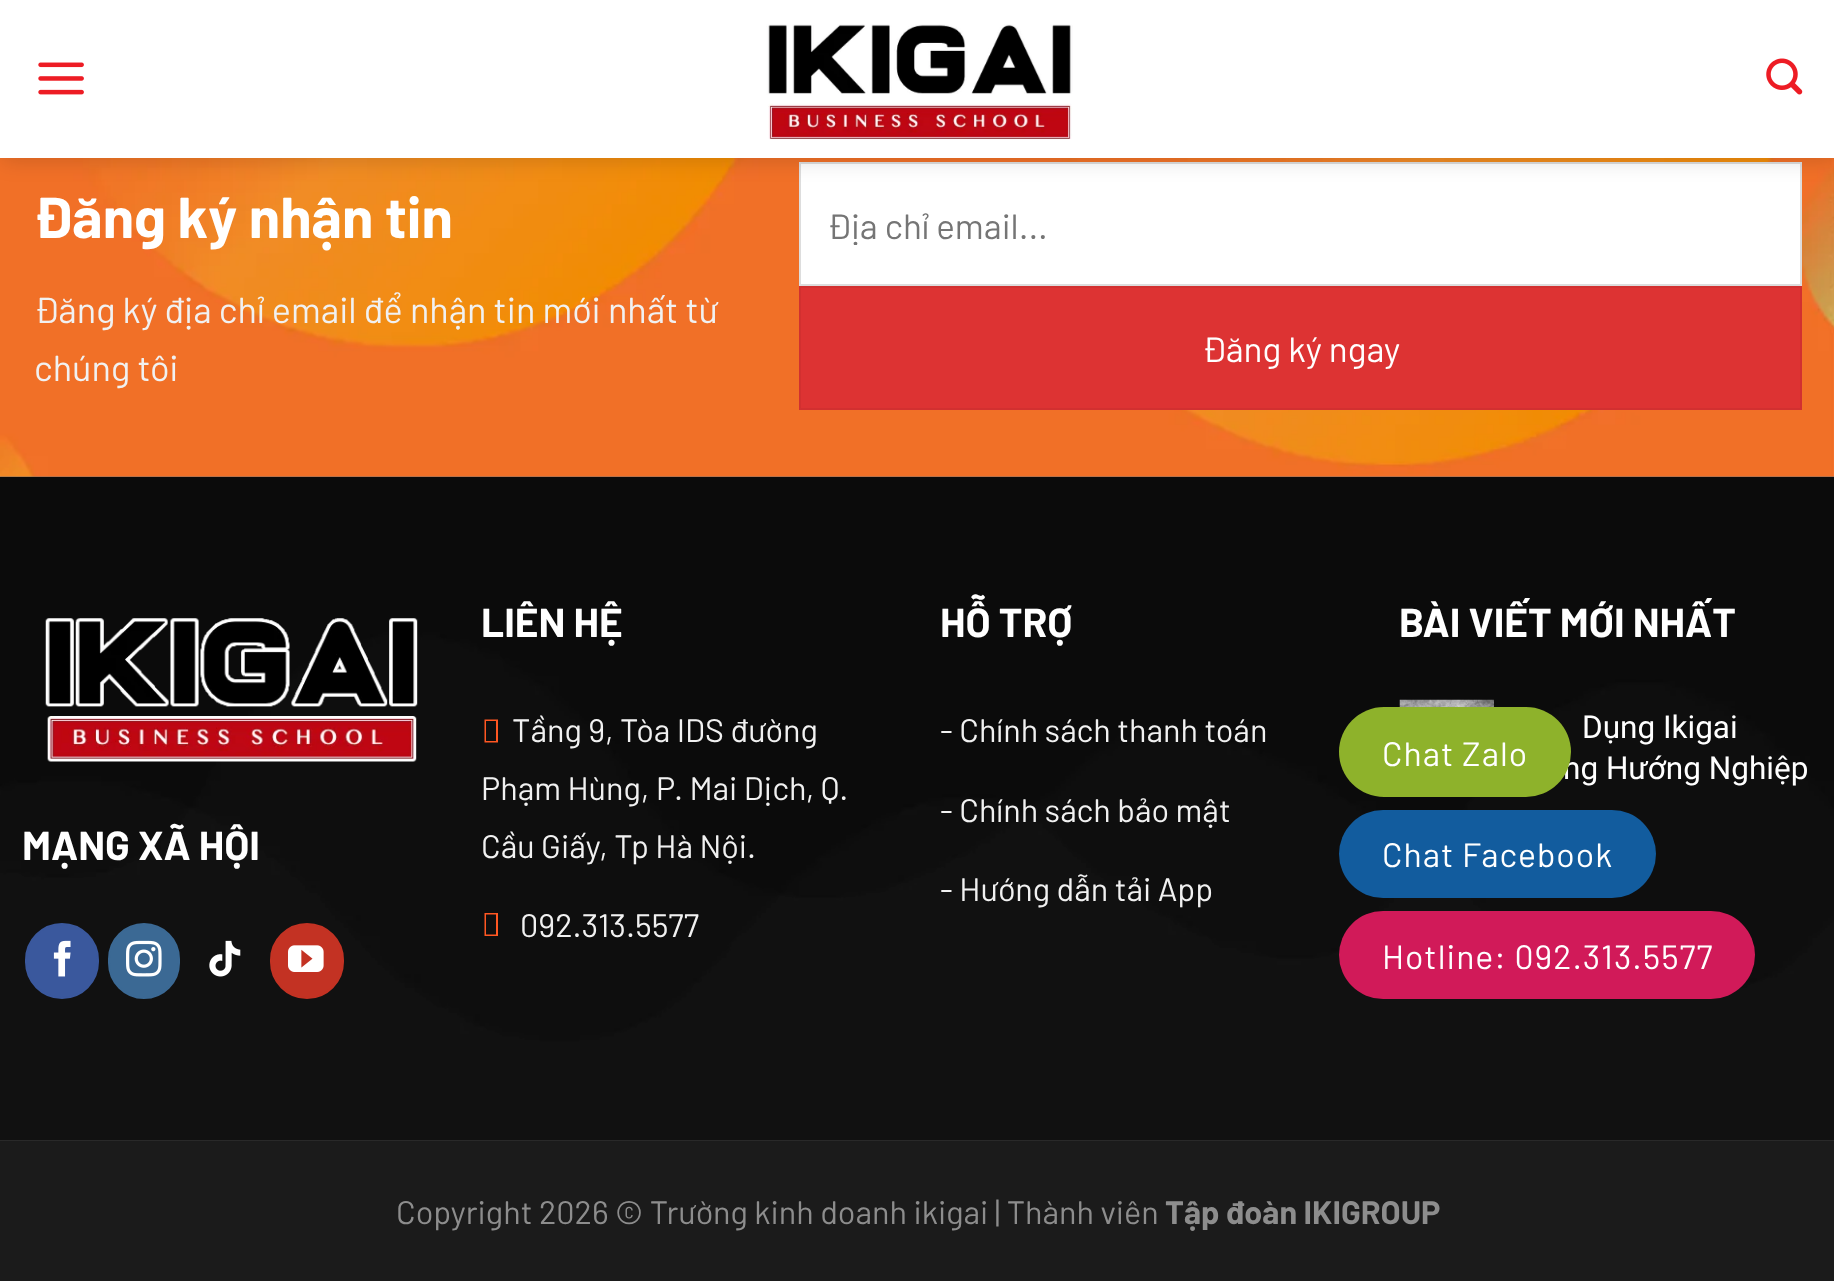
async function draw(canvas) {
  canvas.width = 1834;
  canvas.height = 1281;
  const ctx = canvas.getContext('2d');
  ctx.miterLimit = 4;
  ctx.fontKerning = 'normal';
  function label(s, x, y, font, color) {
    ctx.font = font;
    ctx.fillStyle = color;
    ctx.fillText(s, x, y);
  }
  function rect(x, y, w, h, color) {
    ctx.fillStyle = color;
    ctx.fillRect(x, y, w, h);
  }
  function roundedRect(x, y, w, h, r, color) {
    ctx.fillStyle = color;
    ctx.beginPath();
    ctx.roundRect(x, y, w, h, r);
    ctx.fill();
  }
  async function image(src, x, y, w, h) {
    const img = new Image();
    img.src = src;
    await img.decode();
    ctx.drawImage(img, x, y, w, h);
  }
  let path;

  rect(0, 0, 1834, 1281, '#fff');
  await image('assets/img4.png', 0, 158, 1834, 319);
  ctx.beginPath();
  ctx.rect(800, 163, 1001, 122);
  ctx.fill();
  ctx.strokeStyle = '#ddd';
  ctx.lineWidth = 2;
  ctx.stroke();
  ctx.fillStyle = '#00000026';
  ctx.filter = 'blur(11px)';
  ctx.beginPath();
  ctx.rect(2, 2, 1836, 158);
  ctx.fill();
  ctx.filter = 'none';
  rect(0, 0, 1834, 158, '#fff');
  await image('assets/img1.png', 38, 62, 46, 33);
  await image('assets/img2.png', 766, 24, 307, 116);
  await image('assets/img3.png', 1766, 58, 37, 37);
  label('Đăng ký nhận tin', 34, 238, 'bold 57.5px Barlow', '#fff');
  label('Đăng ký địa chỉ email để nhận tin mới nhất từ', 34, 323, '36px Barlow', '#f1f1f1');
  label('chúng tôi', 34, 381, '36px Barlow', '#f1f1f1');
  ctx.save();
  ctx.beginPath();
  ctx.rect(828, 203, 945, 42);
  ctx.clip();
  label('Địa chỉ email...', 827, 239, '35px Barlow', '#757575');
  ctx.restore();
  ctx.fillStyle = '#d33';
  ctx.beginPath();
  ctx.rect(800, 287, 1001, 122);
  ctx.fill();
  ctx.strokeStyle = '#d23030';
  ctx.stroke();
  label('Đăng ký ngay', 1202, 362, '35px Barlow', '#fff');
  rect(0, 1140, 1834, 1, '#414141');
  await image('assets/img5.png', 0, 476, 1834, 665);
  await image('assets/img6.png', 45, 618, 373, 144);
  label('MẠNG XÃ HỘI', 22, 860, 'bold 40.5px Barlow', '#fff');
  ctx.fillStyle = '#3a589d';
  ctx.beginPath();
  ctx.roundRect(26, 924, 72, 74, 36);
  ctx.fill();
  ctx.strokeStyle = '#3a589d';
  ctx.stroke();
  await image('assets/img7.png', 53, 940, 18, 37);
  ctx.fillStyle = '#3b6994';
  ctx.beginPath();
  ctx.roundRect(109, 924, 70, 74, 35);
  ctx.fill();
  ctx.strokeStyle = '#3b6994';
  ctx.stroke();
  await image('assets/img8.png', 126, 940, 36, 37);
  await image('assets/img9.png', 209, 940, 32, 37);
  ctx.fillStyle = '#c33223';
  ctx.beginPath();
  ctx.roundRect(271, 924, 72, 74, 36);
  ctx.fill();
  ctx.strokeStyle = '#c33223';
  ctx.stroke();
  await image('assets/img10.png', 288, 945, 36, 27);
  label('LIÊN HỆ', 481, 637, 'bold 40.5px Barlow', '#fff');
  ctx.fillStyle = '#ff5722';
  path = new Path2D('M484.5 742.5V719.5H498V742.5ZM486 741H496V721H486Z');
  ctx.fill(path);
  label('Tầng 9, Tòa IDS đường', 512, 742, '32.4px Barlow', '#f1f1f1');
  label('Phạm Hùng, P. Mai Dịch, Q.', 481, 800, '32.4px Barlow', '#f1f1f1');
  label('Cầu Giấy, Tp Hà Nội.', 481, 858, '32.4px Barlow', '#f1f1f1');
  ctx.fillStyle = '#ff5722';
  path = new Path2D('M484.5 936V913H498V936ZM486 934.5H496V914.5H486Z');
  ctx.fill(path);
  label('092.313.5577', 520, 937, '32.4px Barlow', '#f1f1f1');
  label('HỖ TRỢ', 940, 637, 'bold 40.5px Barlow', '#fff');
  label('- Chính sách thanh toán', 940, 742, '32.4px Barlow', '#f1f1f1');
  label('- Chính sách bảo mật', 940, 822, '32.4px Barlow', '#f1f1f1');
  label('- Hướng dẫn tải App', 940, 901, '32.4px Barlow', '#f1f1f1');
  label('BÀI VIẾT MỚI NHẤT', 1399, 637, 'bold 40.5px Barlow', '#fff');
  await image('assets/img11.png', 1399, 699, 95, 8);
  label('Dụng Ikigai', 1582, 738, '31.5px Roboto', '#fff');
  label('ng Hướng Nghiệp', 1563, 779, '31.5px Roboto', '#fff');
  rect(0, 1141, 1834, 140, '#1b1b1b');
  label('Copyright 2026 © Trường kinh doanh ikigai | Thành viên', 396, 1224, '32.4px Barlow', '#8d8d8d');
  label('Tập đoàn IKIGROUP', 1165, 1224, 'bold 32.4px Barlow', '#8d8d8d');
  roundedRect(1339, 707, 232, 90, 45, '#8eb22b');
  ctx.letterSpacing = '1.05px';
  label('Chat Zalo', 1382, 766, '33.75px Barlow', '#fff');
  roundedRect(1339, 810, 317, 88, 44, '#125c9e');
  label('Chat Facebook', 1382, 867, '33.75px Barlow', '#fff');
  roundedRect(1339, 911, 416, 88, 44, '#d11a59');
  label('Hotline: 092.313.5577', 1382, 969, '33.75px Barlow', '#fff');
}

draw(document.querySelector('canvas'));
